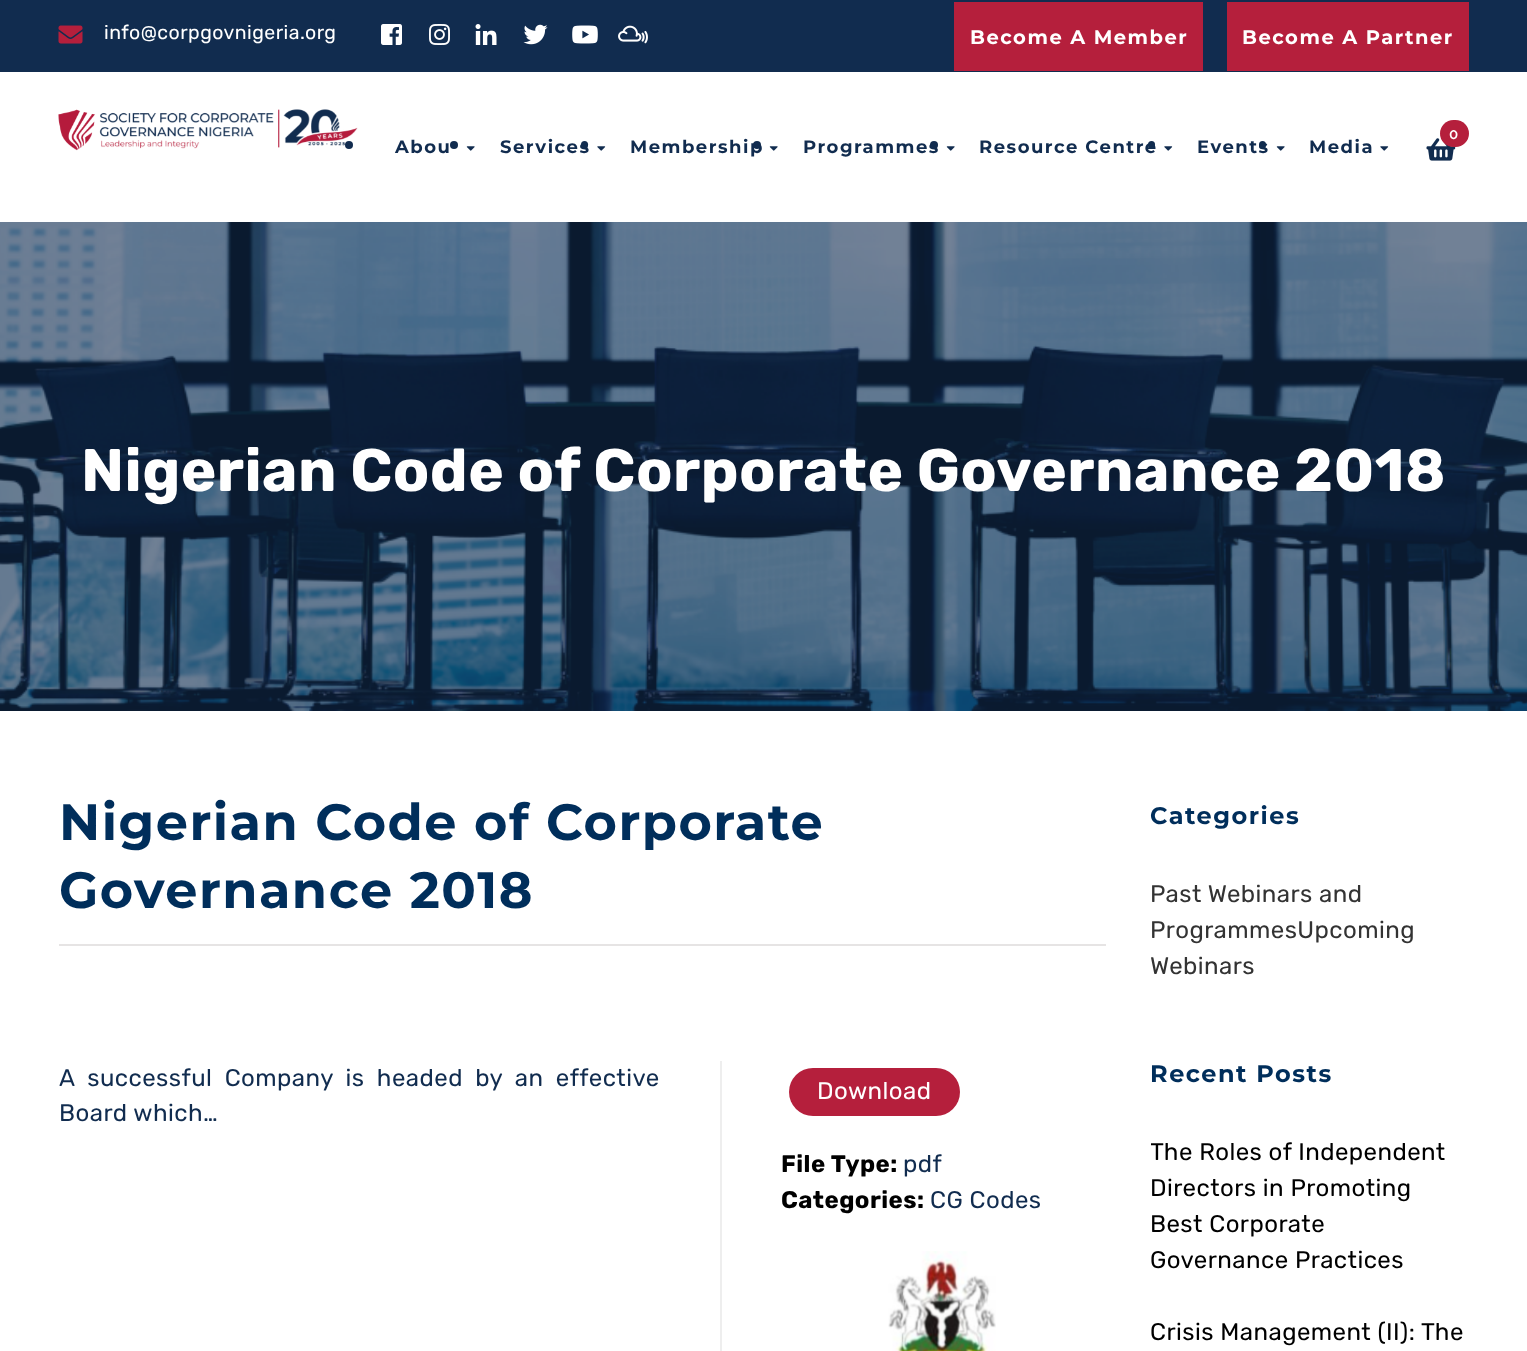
async function draw(canvas) {
  canvas.width = 1527;
  canvas.height = 1351;
  const ctx = canvas.getContext('2d');
  ctx.miterLimit = 4;
  ctx.fontKerning = 'normal';
  function label(s, x, y, font, color) {
    ctx.font = font;
    ctx.fillStyle = color;
    ctx.fillText(s, x, y);
  }
  function rect(x, y, w, h, color) {
    ctx.fillStyle = color;
    ctx.fillRect(x, y, w, h);
  }
  function roundedRect(x, y, w, h, r, color) {
    ctx.fillStyle = color;
    ctx.beginPath();
    ctx.roundRect(x, y, w, h, r);
    ctx.fill();
  }
  async function image(src, x, y, w, h) {
    const img = new Image();
    img.src = src;
    await img.decode();
    ctx.drawImage(img, x, y, w, h);
  }

  rect(0, 0, 1527, 1351, '#fff');
  rect(0, 0, 1527, 72, '#112c4f');
  await image('assets/img1.png', 58, 25, 25, 19);
  ctx.letterSpacing = '0.45px';
  label('info@corpgovnigeria.org', 104, 39, '300 19.5px Rubik', '#fff');
  await image('assets/img2.png', 381, 24, 21, 21);
  await image('assets/img3.png', 429, 24, 21, 21);
  await image('assets/img4.png', 475, 24, 22, 21);
  await image('assets/img5.png', 523, 24, 25, 21);
  await image('assets/img6.png', 572, 25, 26, 19);
  await image('assets/img7.png', 618, 25, 30, 19);
  rect(954, 2, 249, 69, '#b51f3c');
  ctx.letterSpacing = '1.5px';
  label('Become A Member', 970, 44, 'bold 19.5px Montserrat', '#fff');
  rect(1227, 2, 242, 69, '#b51f3c');
  label('Become A Partner', 1242, 44, 'bold 19.5px Montserrat', '#fff');
  ctx.fillStyle = '#112c4f';
  ctx.beginPath();
  ctx.arc(349, 145, 4, 0, 2 * Math.PI);
  ctx.fill();
  await image('assets/img8.png', 58, 109, 300, 42);
  await image('assets/img9.png', 1426, 138, 30, 23);
  roundedRect(1440, 120, 29, 27, 13.5, '#b51f3c');
  ctx.letterSpacing = '0.45px';
  label('0', 1449, 139, '600 15px Raleway', '#fff');
  ctx.letterSpacing = '1.5px';
  label('Abou', 395, 153, 'bold 18px Montserrat', '#112c4f');
  await image('assets/img10.png', 466, 146, 9, 5);
  ctx.beginPath();
  ctx.arc(454, 145, 4, 0, 2 * Math.PI);
  ctx.fill();
  label('Services', 500, 153, 'bold 18px Montserrat', '#112c4f');
  await image('assets/img11.png', 597, 146, 9, 5);
  roundedRect(581, 141, 7, 8, 3.5, '#112c4f');
  label('Membership', 630, 153, 'bold 18px Montserrat', '#112c4f');
  await image('assets/img10.png', 769, 146, 9, 5);
  ctx.beginPath();
  ctx.arc(757, 145, 4, 0, 2 * Math.PI);
  ctx.fill();
  label('Programmes', 803, 153, 'bold 18px Montserrat', '#112c4f');
  await image('assets/img10.png', 946, 146, 9, 5);
  ctx.beginPath();
  ctx.arc(934, 145, 4, 0, 2 * Math.PI);
  ctx.fill();
  label('Resource Centre', 979, 153, 'bold 18px Montserrat', '#112c4f');
  await image('assets/img11.png', 1164, 146, 9, 5);
  roundedRect(1148, 141, 7, 8, 3.5, '#112c4f');
  label('Events', 1197, 153, 'bold 18px Montserrat', '#112c4f');
  await image('assets/img10.png', 1276, 146, 9, 5);
  roundedRect(1259, 141, 7, 8, 3.5, '#112c4f');
  label('Media', 1309, 153, 'bold 18px Montserrat', '#112c4f');
  await image('assets/img11.png', 1380, 146, 9, 5);
  await image('assets/img12.png', 0, 222, 1527, 489);
  ctx.letterSpacing = '0.45px';
  label('Nigerian Code of Corporate Governance 2018', 81, 491, 'bold 60px Rubik', '#fff');
  rect(59, 944, 1047, 2, '#e6e4e4');
  ctx.letterSpacing = '1.5px';
  label('Nigerian Code of Corporate', 59, 840, 'bold 51px Montserrat', '#002e5b');
  label('Governance 2018', 59, 908, 'bold 51px Montserrat', '#002e5b');
  ctx.letterSpacing = '0.45px';
  ctx.wordSpacing = '6px';
  label('A successful Company is headed by an effective', 59, 1086, '300 24px Rubik', '#112c4f');
  ctx.wordSpacing = '0px';
  label('Board which…', 59, 1121, '300 24px Rubik', '#112c4f');
  rect(720, 1061, 2, 290, '#eee');
  roundedRect(789, 1068, 171, 48, 24, '#b51f3c');
  label('Download', 817, 1099, '300 24px Rubik', '#fff');
  label('File Type:', 781, 1172, 'bold 24px Rubik', '#000');
  label('pdf', 903, 1172, '300 24px Rubik', '#112c4f');
  label('Categories:', 781, 1208, 'bold 24px Rubik', '#000');
  label('CG Codes', 930, 1208, '300 24px Rubik', '#112c4f');
  await image('assets/img13.png', 888, 1251, 108, 100);
  ctx.letterSpacing = '1.5px';
  label('Categories', 1150, 824, 'bold 24px Montserrat', '#002e5b');
  ctx.letterSpacing = '0.45px';
  label('Past Webinars and', 1150, 902, '300 24px Rubik', '#333');
  label('ProgrammesUpcoming', 1150, 938, '300 24px Rubik', '#333');
  label('Webinars', 1150, 974, '300 24px Rubik', '#333');
  ctx.letterSpacing = '1.5px';
  label('Recent Posts', 1150, 1082, 'bold 24px Montserrat', '#002e5b');
  ctx.save();
  ctx.beginPath();
  ctx.rect(1151, 1134, 318, 144);
  ctx.clip();
  ctx.letterSpacing = '0.45px';
  label('The Roles of Independent', 1150, 1160, '300 24px Rubik', '#000');
  ctx.restore();
  ctx.letterSpacing = '0.45px';
  label('Directors in Promoting', 1150, 1196, '300 24px Rubik', '#000');
  label('Best Corporate', 1150, 1232, '300 24px Rubik', '#000');
  label('Governance Practices', 1150, 1268, '300 24px Rubik', '#000');
  label('Crisis Management (II): The', 1150, 1340, '300 24px Rubik', '#000');
}

draw(document.querySelector('canvas'));
